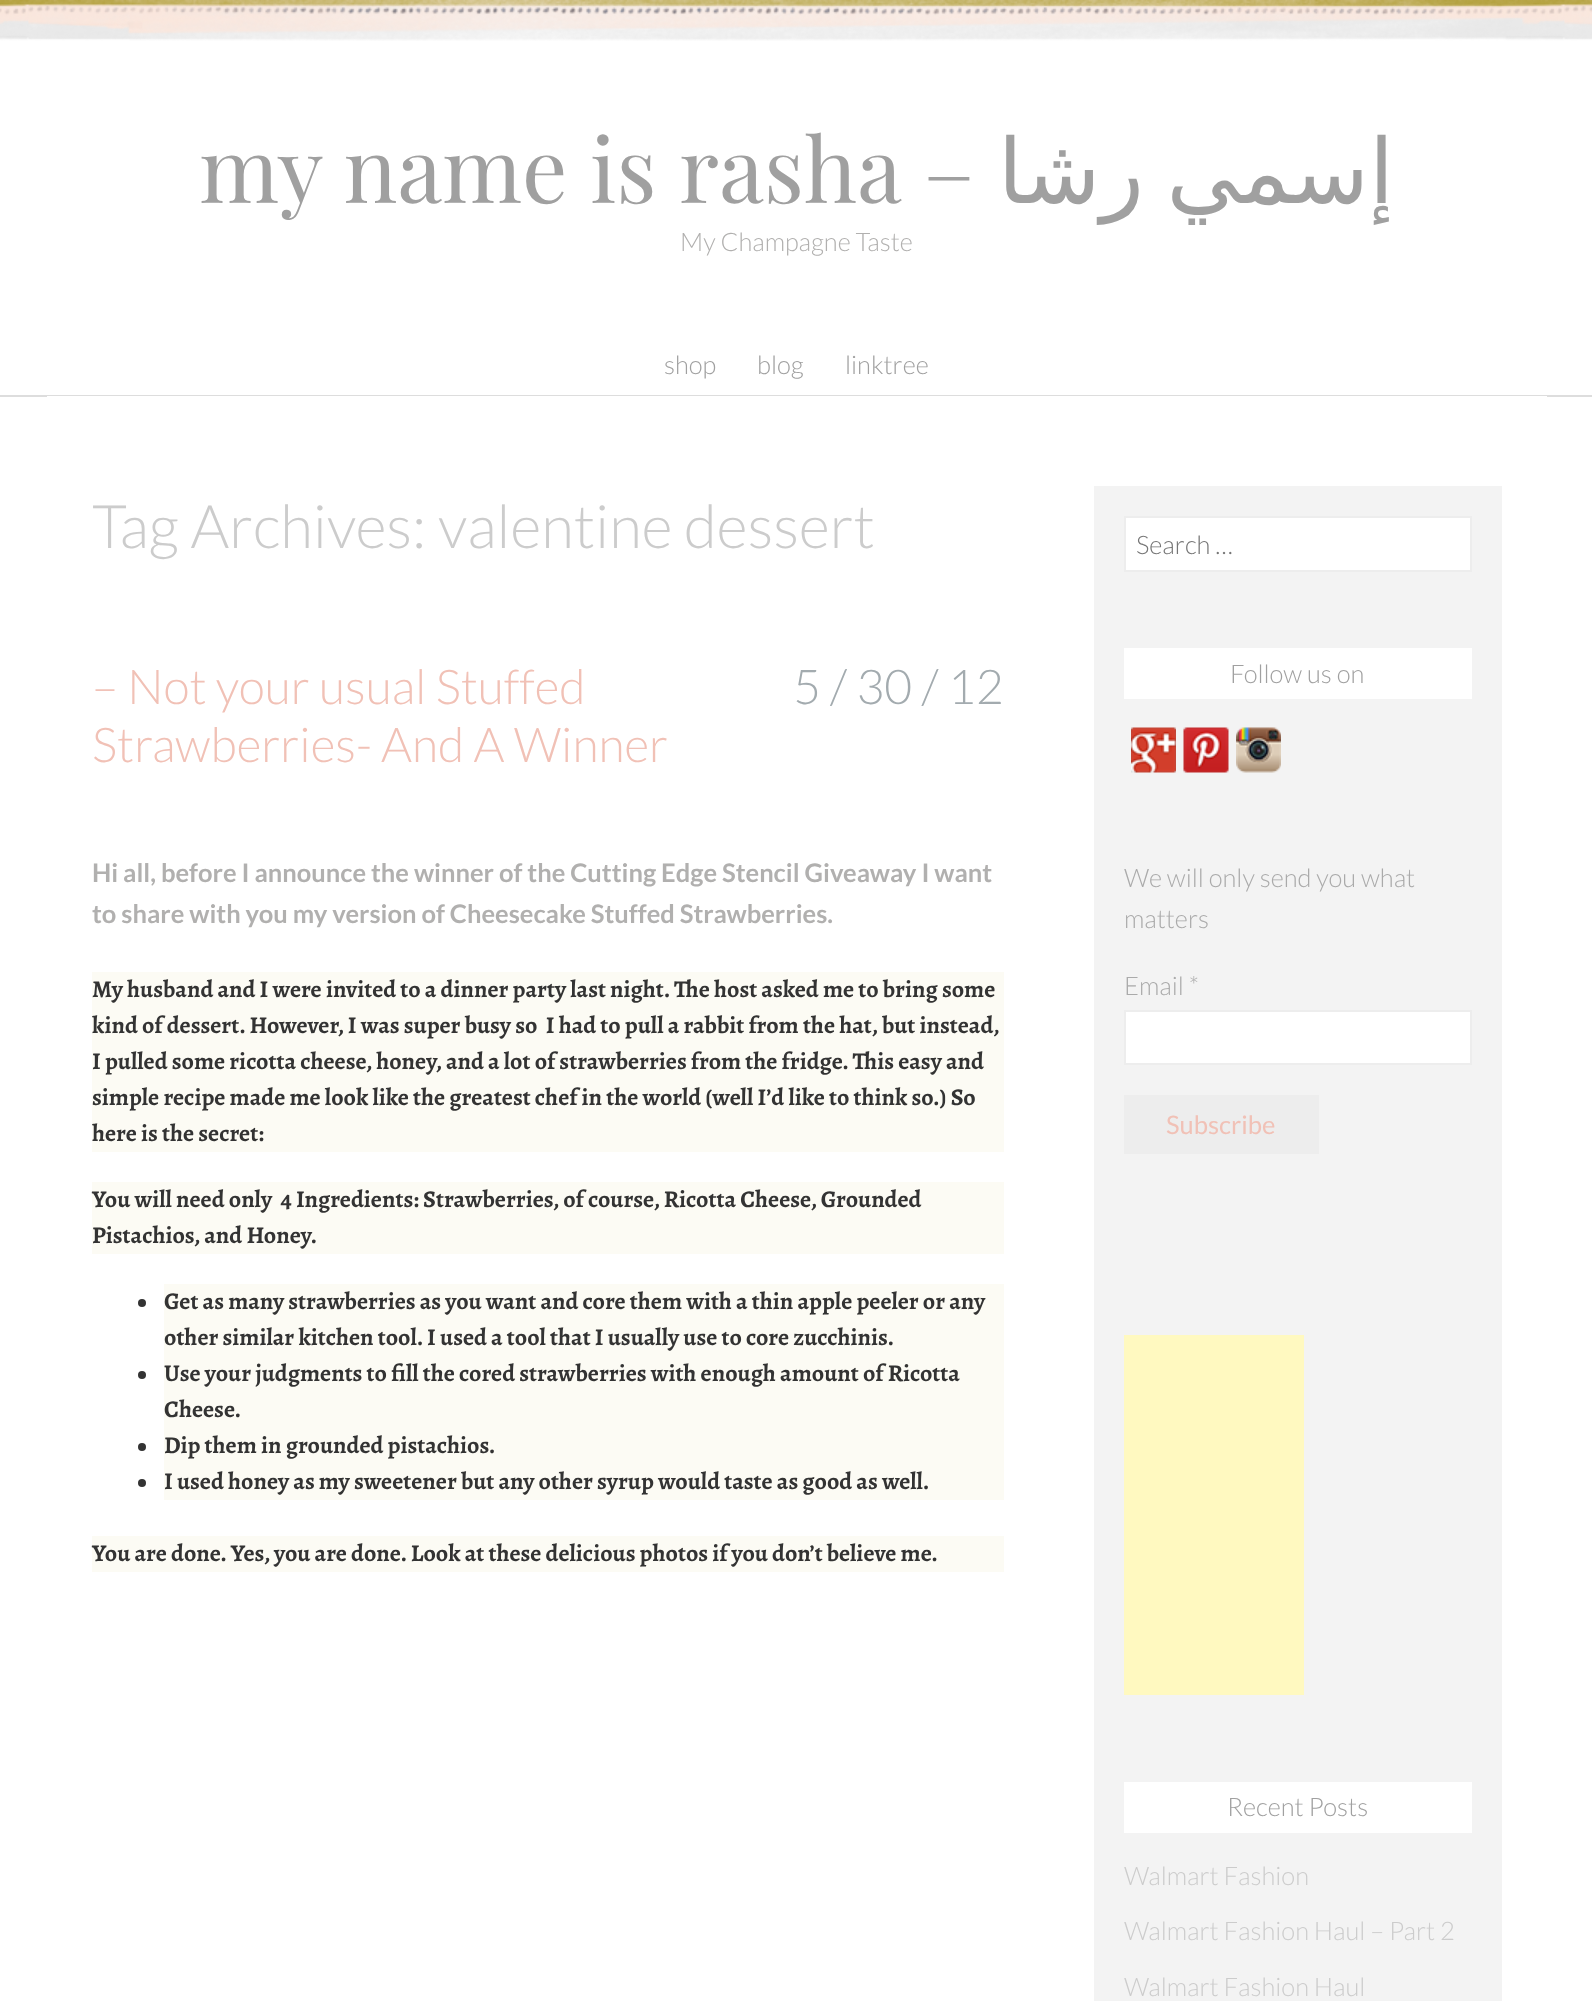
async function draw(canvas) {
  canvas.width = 1592;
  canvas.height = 2001;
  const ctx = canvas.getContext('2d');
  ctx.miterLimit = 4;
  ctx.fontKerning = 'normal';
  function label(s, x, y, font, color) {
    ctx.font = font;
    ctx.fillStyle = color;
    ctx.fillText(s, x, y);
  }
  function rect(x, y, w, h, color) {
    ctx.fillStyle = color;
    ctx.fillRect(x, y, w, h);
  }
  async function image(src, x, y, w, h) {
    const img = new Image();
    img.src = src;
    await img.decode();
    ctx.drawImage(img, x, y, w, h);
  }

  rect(0, 0, 1592, 2001, '#fff');
  await image('assets/img1.png', 0, 0, 1592, 41);
  label('my name is rasha –', 199, 203, '90px Playfair Display', '#a0a0a0');
  ctx.wordSpacing = '-6px';
  ctx.direction = 'rtl';
  label('إسمي رشا', 1394, 203, '90px DejaVu Sans', '#a0a0a0');
  ctx.wordSpacing = '0px';
  ctx.direction = 'ltr';
  label('My Champagne Taste', 680, 251, '300 25.5px Lato', '#b1b0af');
  rect(0, 395, 1592, 2, '#ddd');
  label('shop', 664, 374, '300 25.5px Lato', '#a0a0a0');
  label('blog', 757, 374, '300 25.5px Lato', '#a0a0a0');
  label('linktree', 845, 374, '300 25.5px Lato', '#a0a0a0');
  rect(47, 396, 1500, 1, '#fff');
  label('Tag Archives: valentine dessert', 92, 548, '300 60px Lato', '#ccc');
  label('– Not your usual Stuffed', 92, 704, '300 48px Lato', '#f1c1b6');
  label('Strawberries- And A Winner', 92, 762, '300 48px Lato', '#f1c1b6');
  label('5 / 30 / 12', 793, 704, '300 48px Lato', '#a3abaf');
  label('Hi all, before I announce the winner of the Cutting Edge Stencil Giveaway I want', 92, 882, 'bold 25.5px Lato', '#b1b0af');
  label('to share with you my version of Cheesecake Stuffed Strawberries.', 92, 923, 'bold 25.5px Lato', '#b1b0af');
  rect(92, 972, 912, 180, '#fcfbf4');
  label('My husband and I were invited to a dinner party last night. The host asked me to bring some', 92, 997, 'bold 24px Alegreya', '#333');
  label('kind of dessert. However, I was super busy so  I had to pull a rabbit from the hat, but instead,', 92, 1033, 'bold 24px Alegreya', '#333');
  label('I pulled some ricotta cheese, honey, and a lot of strawberries from the fridge. This easy and', 92, 1069, 'bold 24px Alegreya', '#333');
  label('simple recipe made me look like the greatest chef in the world (well I’d like to think so.) So', 92, 1105, 'bold 24px Alegreya', '#333');
  label('here is the secret:', 92, 1141, 'bold 24px Alegreya', '#333');
  rect(92, 1182, 912, 72, '#fcfbf4');
  label('You will need only  4 Ingredients: Strawberries, of course, Ricotta Cheese, Grounded', 92, 1207, 'bold 24px Alegreya', '#333');
  label('Pistachios, and Honey.', 92, 1243, 'bold 24px Alegreya', '#333');
  rect(164, 1284, 840, 216, '#fcfbf4');
  ctx.fillStyle = '#333';
  ctx.beginPath();
  ctx.arc(142, 1303, 4, 0, 2 * Math.PI);
  ctx.fill();
  label('Get as many strawberries as you want and core them with a thin apple peeler or any', 164, 1309, 'bold 24px Alegreya', '#333');
  label('other similar kitchen tool. I used a tool that I usually use to core zucchinis.', 164, 1345, 'bold 24px Alegreya', '#333');
  ctx.beginPath();
  ctx.arc(142, 1375, 4, 0, 2 * Math.PI);
  ctx.fill();
  label('Use your judgments to fill the cored strawberries with enough amount of Ricotta', 164, 1381, 'bold 24px Alegreya', '#333');
  label('Cheese.', 164, 1417, 'bold 24px Alegreya', '#333');
  ctx.beginPath();
  ctx.arc(142, 1447, 4, 0, 2 * Math.PI);
  ctx.fill();
  label('Dip them in grounded pistachios.', 164, 1453, 'bold 24px Alegreya', '#333');
  ctx.beginPath();
  ctx.arc(142, 1483, 4, 0, 2 * Math.PI);
  ctx.fill();
  label('I used honey as my sweetener but any other syrup would taste as good as well.', 164, 1489, 'bold 24px Alegreya', '#333');
  rect(92, 1536, 912, 36, '#fcfbf4');
  label('You are done. Yes, you are done. Look at these delicious photos if you don’t believe me.', 92, 1561, 'bold 24px Alegreya', '#333');
  rect(1094, 486, 408, 1515, '#f3f3f3');
  ctx.fillStyle = '#fff';
  ctx.beginPath();
  ctx.rect(1125, 517, 346, 54);
  ctx.fill();
  ctx.strokeStyle = '#ededed';
  ctx.lineWidth = 2;
  ctx.stroke();
  label('Search …', 1136, 554, '300 25.5px Lato', '#757575');
  rect(1124, 648, 348, 51, '#fff');
  label('Follow us on', 1230, 683, '300 25.5px Lato', '#a0a0a0');
  await image('assets/img2.png', 1131, 727, 45, 46);
  await image('assets/img3.png', 1183, 727, 46, 46);
  await image('assets/img4.png', 1236, 727, 45, 46);
  label('We will only send you what', 1124, 887, '300 25.5px Lato', '#aaa');
  label('matters', 1124, 928, '300 25.5px Lato', '#aaa');
  label('Email *', 1124, 995, '300 25.5px Lato', '#aaa');
  ctx.fillStyle = '#fff';
  ctx.beginPath();
  ctx.rect(1125, 1011, 346, 53);
  ctx.fill();
  ctx.stroke();
  rect(1124, 1095, 195, 59, '#ededed');
  label('Subscribe', 1166, 1134, '25.5px Lato', '#f1c1b6');
  rect(1124, 1335, 180, 360, '#fff9c0');
  rect(1124, 1782, 348, 51, '#fff');
  label('Recent Posts', 1227, 1816, '300 25.5px Lato', '#a0a0a0');
  label('Walmart Fashion', 1124, 1885, '300 25.5px Lato', '#ccc');
  label('Walmart Fashion Haul – Part 2', 1124, 1940, '300 25.5px Lato', '#ccc');
  label('Walmart Fashion Haul', 1124, 1996, '300 25.5px Lato', '#ccc');
}

draw(document.querySelector('canvas'));
